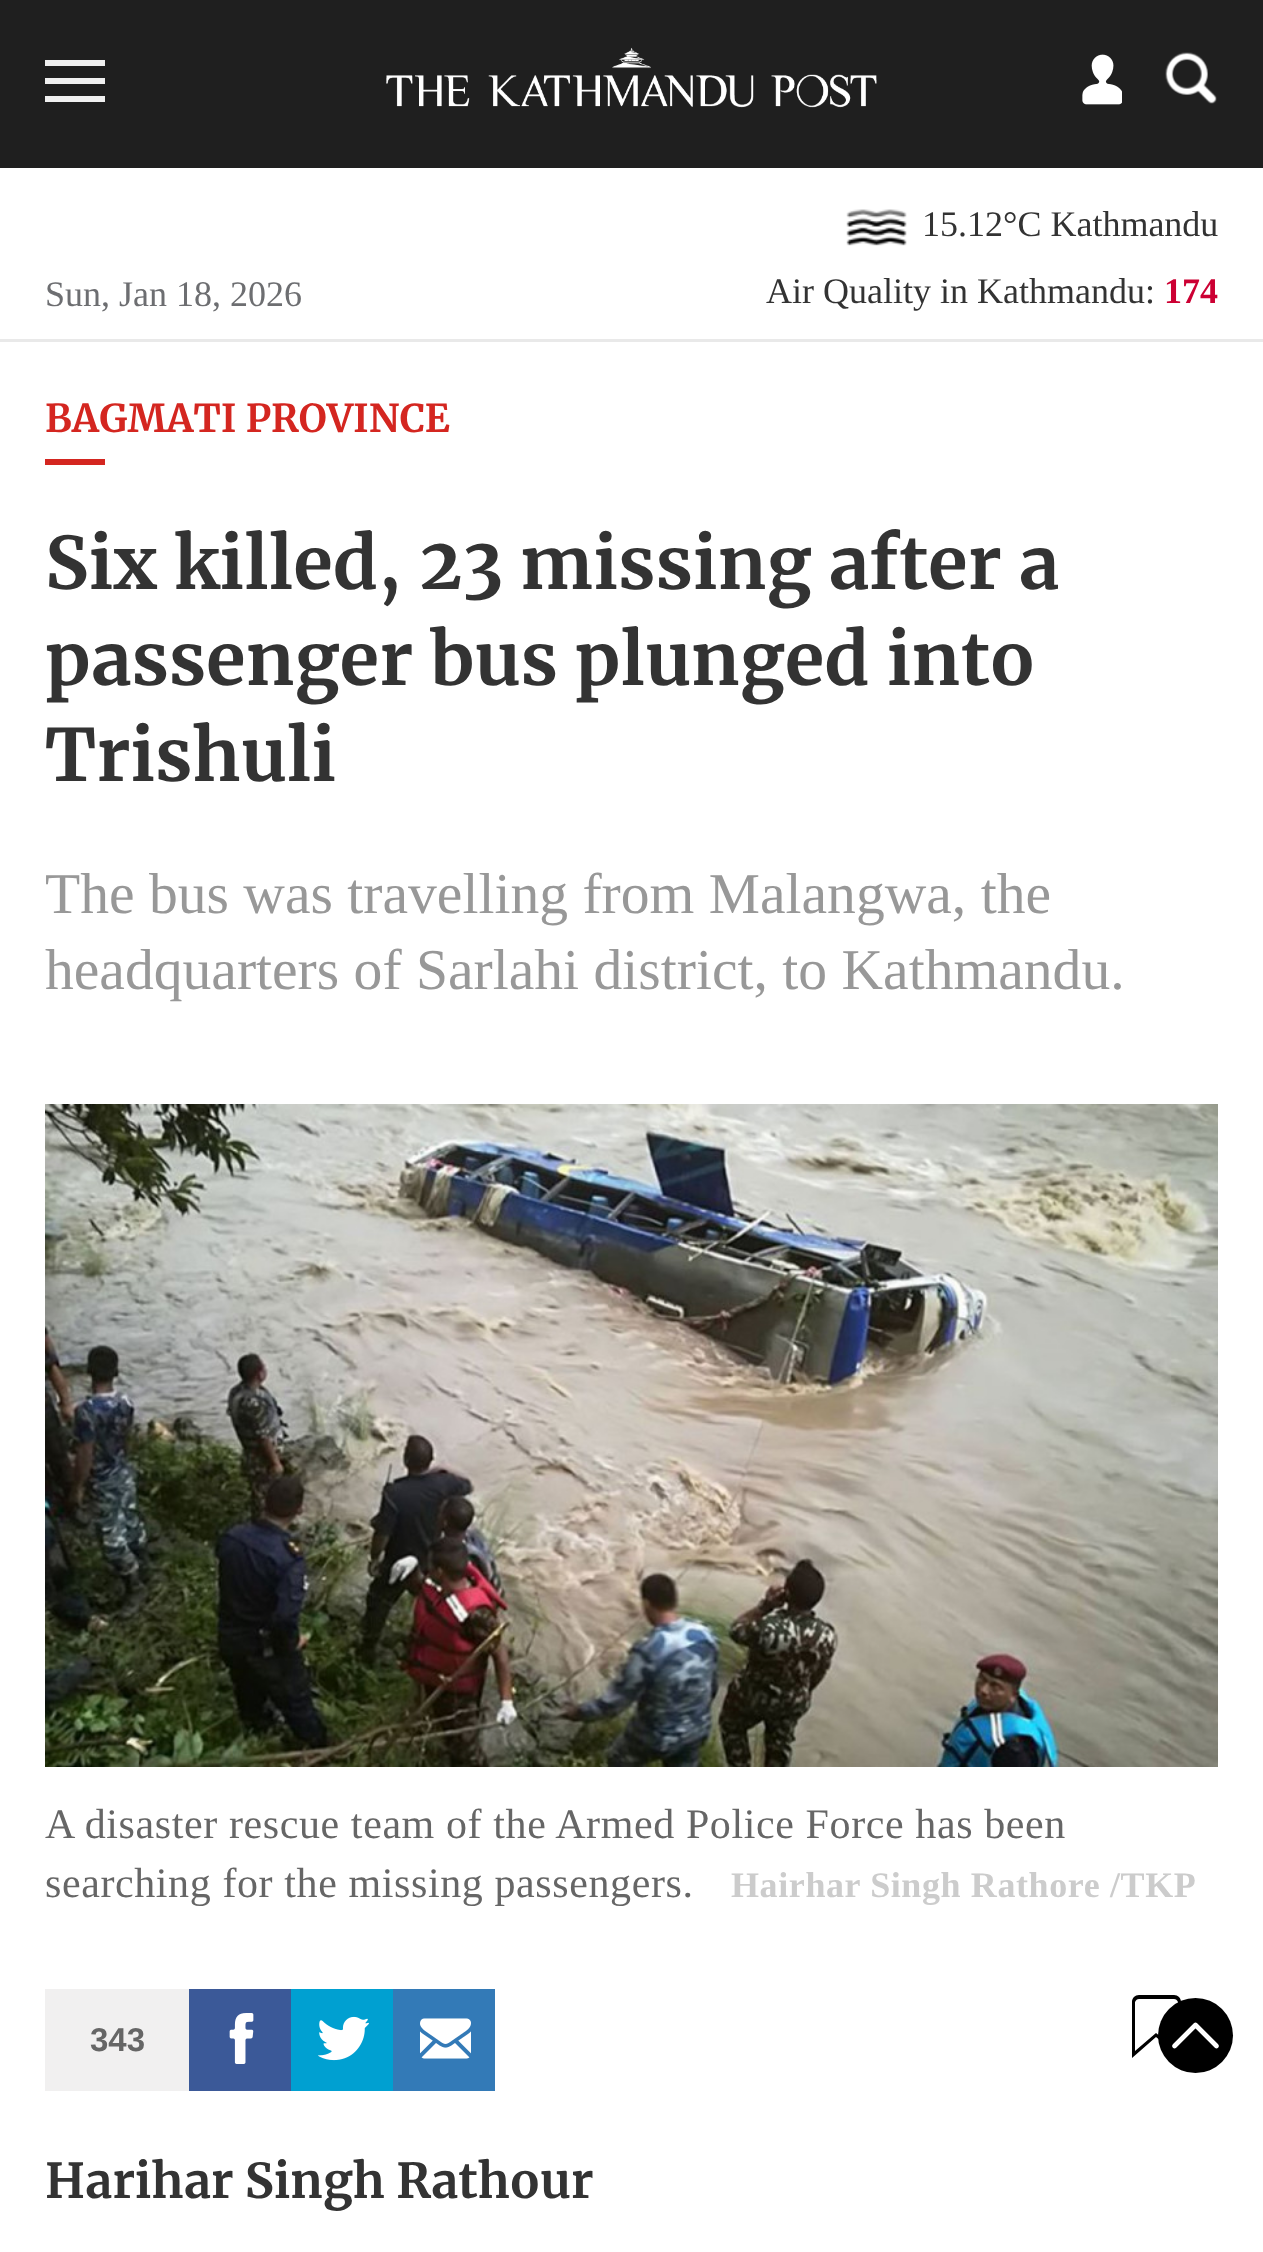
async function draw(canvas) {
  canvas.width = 1263;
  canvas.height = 2252;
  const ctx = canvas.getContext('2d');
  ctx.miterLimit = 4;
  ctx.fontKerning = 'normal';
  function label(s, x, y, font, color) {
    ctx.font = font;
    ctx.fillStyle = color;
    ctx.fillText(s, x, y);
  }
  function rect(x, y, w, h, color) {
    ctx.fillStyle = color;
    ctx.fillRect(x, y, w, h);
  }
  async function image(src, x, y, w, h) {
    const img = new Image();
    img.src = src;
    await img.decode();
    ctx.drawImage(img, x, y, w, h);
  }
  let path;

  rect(0, 0, 1263, 2252, '#fff');
  rect(0, 0, 1263, 168, '#1f1f1f');
  rect(45, 60, 60, 6, '#f0f0f0');
  rect(45, 78, 60, 6, '#f0f0f0');
  rect(45, 96, 60, 6, '#f0f0f0');
  await image('assets/img1.png', 1082, 54, 40, 51);
  await image('assets/img2.png', 1165, 52, 52, 52);
  await image('assets/img3.png', 386, 47, 491, 61);
  rect(0, 339, 1263, 3, '#e9e9e9');
  label('Sun, Jan 18, 2026', 45, 306, '36px Liberation Serif', '#6d6e71');
  await image('assets/img4.png', 846, 209, 61, 37);
  label('15.12°C Kathmandu', 922, 236, '36px Liberation Serif', '#333');
  label('Air Quality in Kathmandu:', 766, 303, '36px Liberation Serif', '#333');
  label('174', 1164, 303, 'bold 36px Liberation Serif', '#c03');
  label('BAGMATI PROVINCE', 45, 432, 'bold 38.4px Merriweather', '#d42620');
  rect(45, 459, 60, 6, '#d42620');
  label('Six killed, 23 missing after a', 45, 589, 'bold 72px Merriweather', '#333');
  label('passenger bus plunged into', 45, 685, 'bold 72px Merriweather', '#333');
  label('Trishuli', 45, 781, 'bold 72px Merriweather', '#333');
  label('The bus was travelling from Malangwa, the', 45, 913, '57.6px Liberation Serif', '#989898');
  label('headquarters of Sarlahi district, to Kathmandu.', 45, 989, '57.6px Liberation Serif', '#989898');
  await image('assets/img5.png', 45, 1104, 1173, 663);
  ctx.letterSpacing = '0.6px';
  label('A disaster rescue team of the Armed Police Force has been', 45, 1838, '42px Liberation Serif', '#666');
  label('searching for the missing passengers.', 45, 1897, '42px Liberation Serif', '#666');
  label('Hairhar Singh Rathore /TKP', 731, 1897, 'bold 36px Liberation Serif', '#ccc');
  rect(45, 1989, 144, 102, '#f1f0f0');
  ctx.letterSpacing = '0px';
  label('343', 90, 2051, 'bold 33px Liberation Sans', '#666');
  rect(189, 1989, 102, 102, '#3b5998');
  await image('assets/img6.png', 229, 2013, 25, 51);
  rect(291, 1989, 102, 102, '#00a0d1');
  await image('assets/img7.png', 318, 2016, 51, 45);
  rect(393, 1989, 102, 102, '#337ab7');
  await image('assets/img8.png', 420, 2018, 51, 41);
  label('Harihar Singh Rathour', 45, 2198, 'bold 48px Merriweather', '#333');
  ctx.fillStyle = '#000';
  path = new Path2D('M1174 1999C1176 1999 1177 2000 1178 2002V2051L1156 2033L1135 2051V2002C1136 2000 1137 1999 1139 1999H1174M1174 1995H1139C1135 1995 1132 1998 1132 2002V2058L1156 2037L1181 2058V2002C1181 1998 1178 1995 1174 1995Z');
  ctx.fill(path);
  ctx.beginPath();
  ctx.arc(1195.5, 2035.5, 37.5, 0, 2 * Math.PI);
  ctx.fill();
  path = new Path2D('M1195.5 2025L1216.5 2046M1174.5 2046L1195.5 2025');
  ctx.strokeStyle = '#fff';
  ctx.lineWidth = 4.7;
  ctx.lineCap = 'round';
  ctx.lineJoin = 'round';
  ctx.stroke(path);
}

draw(document.querySelector('canvas'));
